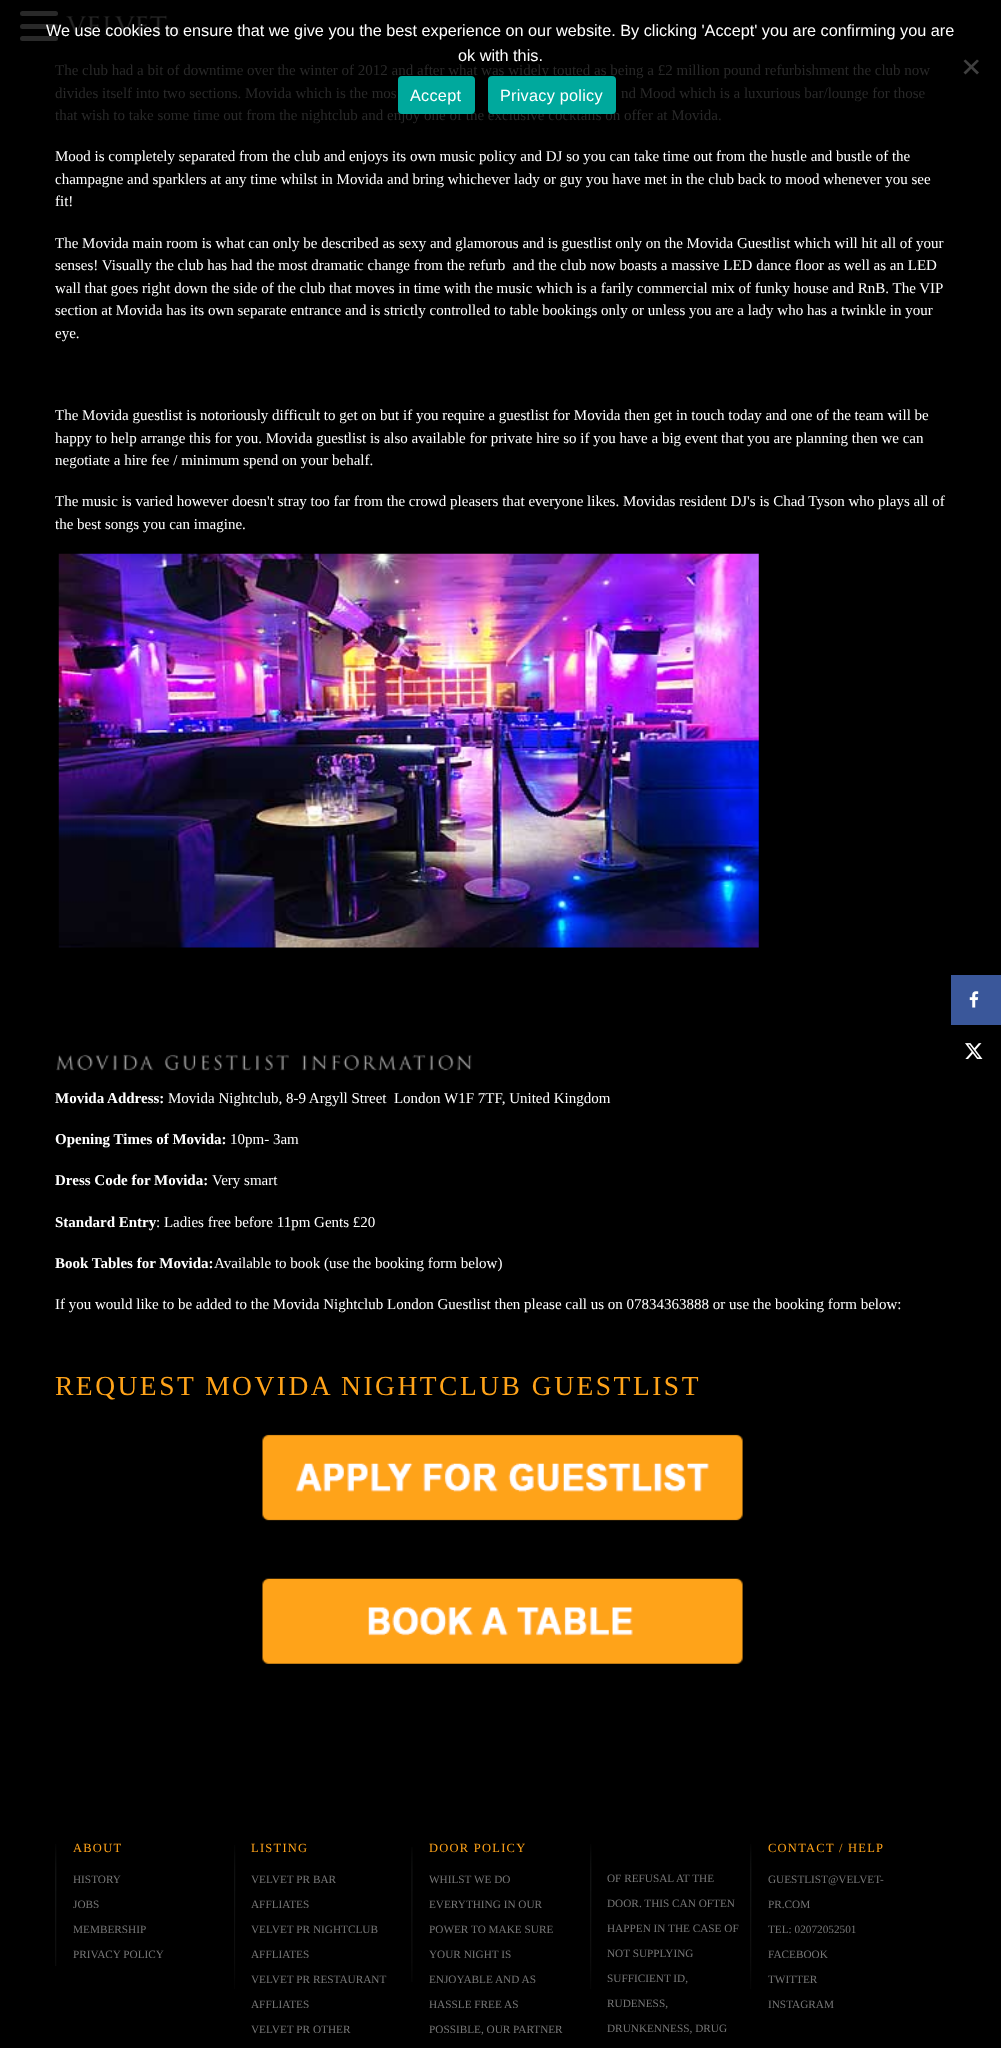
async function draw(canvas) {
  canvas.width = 1001;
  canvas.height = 2048;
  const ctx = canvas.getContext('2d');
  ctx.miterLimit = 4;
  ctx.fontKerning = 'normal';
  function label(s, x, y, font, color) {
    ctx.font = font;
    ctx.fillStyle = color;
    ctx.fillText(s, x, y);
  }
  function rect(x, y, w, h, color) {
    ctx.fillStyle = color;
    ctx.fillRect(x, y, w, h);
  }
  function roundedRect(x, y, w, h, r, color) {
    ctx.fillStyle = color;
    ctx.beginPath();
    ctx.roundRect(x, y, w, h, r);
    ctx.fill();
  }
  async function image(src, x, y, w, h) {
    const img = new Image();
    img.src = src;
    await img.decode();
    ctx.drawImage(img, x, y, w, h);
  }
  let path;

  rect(0, 0, 1001, 2048, '#000');
  roundedRect(20, 11, 38, 5, 2.5, '#292929');
  roundedRect(20, 24, 38, 5, 2.5, '#292929');
  roundedRect(20, 36, 38, 5, 2.5, '#292929');
  await image('assets/img1.png', 66, 15, 115, 22);
  label('We use cookies to ensure that we give you the best experience on our website. By clicking \'Accept\' you are confirming you are', 46, 36, '16.25px Liberation Sans', '#fff');
  label('ok with this.', 458, 61, '16.25px Liberation Sans', '#fff');
  ctx.fillStyle = '#404040';
  path = new Path2D('M977 59.5L979 61L965.5 74.5L963.5 72.5Z');
  ctx.fill(path);
  path = new Path2D('M963.5 61L965.5 59.5L979 72.5L977 74.5Z');
  ctx.fill(path);
  label('The club had a bit of downtime over the winter of 2012 and after what was widely touted as being a £2 million pound refurbishment the club now', 55, 75, '15px Liberation Serif', '#292929');
  label('that wish to take some time out from the nightclub and enjoy one of the exclusive cocktails on offer at Movida.', 55, 120, '15px Liberation Serif', '#292929');
  roundedRect(398, 76, 77, 38, 4, '#00a99d');
  ctx.letterSpacing = '0.25px';
  label('Accept', 410, 101, '16.25px Liberation Sans', '#fff');
  roundedRect(488, 76, 128, 38, 4, '#00a99d');
  label('Privacy policy', 500, 101, '16.25px Liberation Sans', '#fff');
  ctx.letterSpacing = '0px';
  label('divides itself into two sections. Movida which is the mos', 55, 98, '15px Liberation Serif', '#292929');
  label('nd Mood which is a luxurious bar/lounge for those', 621, 98, '15px Liberation Serif', '#292929');
  label('Mood is completely separated from the club and enjoys its own music policy and DJ so you can take time out from the hustle and bustle of the', 55, 161, '15px Liberation Serif', '#fff');
  label('champagne and sparklers at any time whilst in Movida and bring whichever lady or guy you have met in the club back to mood whenever you see', 55, 184, '15px Liberation Serif', '#fff');
  label('fit!', 55, 206, '15px Liberation Serif', '#fff');
  label('The Movida main room is what can only be described as sexy and glamorous and is guestlist only on the Movida Guestlist which will hit all of your', 55, 248, '15px Liberation Serif', '#fff');
  label('senses! Visually the club has had the most dramatic change from the refurb  and the club now boasts a massive LED dance floor as well as an LED', 55, 270, '15px Liberation Serif', '#fff');
  label('wall that goes right down the side of the club that moves in time with the music which is a farily commercial mix of funky house and RnB. The VIP', 55, 293, '15px Liberation Serif', '#fff');
  label('section at Movida has its own separate entrance and is strictly controlled to table bookings only or unless you are a lady who has a twinkle in your', 55, 315, '15px Liberation Serif', '#fff');
  label('eye.', 55, 338, '15px Liberation Serif', '#fff');
  label('The Movida guestlist is notoriously difficult to get on but if you require a guestlist for Movida then get in touch today and one of the team will be', 55, 420, '15px Liberation Serif', '#fff');
  label('happy to help arrange this for you. Movida guestlist is also available for private hire so if you have a big event that you are planning then we can', 55, 443, '15px Liberation Serif', '#fff');
  label('negotiate a hire fee / minimum spend on your behalf.', 55, 465, '15px Liberation Serif', '#fff');
  label('The music is varied however doesn\'t stray too far from the crowd pleasers that everyone likes. Movidas resident DJ\'s is Chad Tyson who plays all of', 55, 506, '15px Liberation Serif', '#fff');
  label('the best songs you can imagine.', 55, 529, '15px Liberation Serif', '#fff');
  await image('assets/img2.png', 58, 553, 701, 395);
  await image('assets/img3.png', 56, 1054, 98, 17);
  await image('assets/img4.png', 164, 1054, 125, 17);
  await image('assets/img5.png', 302, 1054, 170, 17);
  label('Movida Address:', 55, 1103, 'bold 15px Liberation Serif', '#fff');
  label('Movida Nightclub, 8-9 Argyll Street  London W1F 7TF, United Kingdom', 168, 1103, '15px Liberation Serif', '#fff');
  label('Opening Times of Movida:', 55, 1144, 'bold 15px Liberation Serif', '#fff');
  label('10pm- 3am', 230, 1144, '15px Liberation Serif', '#fff');
  label('Dress Code for Movida:', 55, 1185, 'bold 15px Liberation Serif', '#fff');
  label('Very smart', 212, 1185, '15px Liberation Serif', '#fff');
  label('Standard Entry', 55, 1227, 'bold 15px Liberation Serif', '#fff');
  label(': Ladies free before 11pm Gents £20', 156, 1227, '15px Liberation Serif', '#fff');
  label('Book Tables for Movida:', 55, 1268, 'bold 15px Liberation Serif', '#fff');
  label('Available to book (use the booking form below)', 214, 1268, '15px Liberation Serif', '#fff');
  label('If you would like to be added to the Movida Nightclub London Guestlist then please call us on 07834363888 or use the booking form below:', 55, 1309, '15px Liberation Serif', '#fff');
  ctx.letterSpacing = '2.5px';
  label('REQUEST MOVIDA NIGHTCLUB GUESTLIST', 55, 1395, '27.5px Liberation Serif', '#ffa319');
  await image('assets/img6.png', 262, 1434, 481, 87);
  await image('assets/img7.png', 262, 1578, 481, 86);
  rect(951, 975, 50, 50, '#3a579a');
  await image('assets/img8.png', 969, 991, 10, 17);
  await image('assets/img9.png', 965, 1043, 18, 16);
  await image('assets/img10.png', 55, 1844, 2, 122);
  ctx.letterSpacing = '1.25px';
  label('ABOUT', 73, 1852, '12.5px Liberation Serif', '#ffa319');
  ctx.letterSpacing = '0px';
  label('HISTORY', 73, 1883, '11.25px Liberation Serif', '#777');
  label('JOBS', 73, 1908, '11.25px Liberation Serif', '#777');
  label('MEMBERSHIP', 73, 1933, '11.25px Liberation Serif', '#777');
  label('PRIVACY POLICY', 73, 1958, '11.25px Liberation Serif', '#777');
  await image('assets/img11.png', 234, 1845, 2, 144);
  ctx.letterSpacing = '1.25px';
  label('LISTING', 251, 1852, '12.5px Liberation Serif', '#ffa319');
  ctx.letterSpacing = '0px';
  label('VELVET PR BAR', 251, 1883, '11.25px Liberation Serif', '#777');
  label('AFFLIATES', 251, 1908, '11.25px Liberation Serif', '#777');
  label('VELVET PR NIGHTCLUB', 251, 1933, '11.25px Liberation Serif', '#777');
  label('AFFLIATES', 251, 1958, '11.25px Liberation Serif', '#777');
  label('VELVET PR RESTAURANT', 251, 1983, '11.25px Liberation Serif', '#777');
  label('AFFLIATES', 251, 2008, '11.25px Liberation Serif', '#777');
  label('VELVET PR OTHER', 251, 2033, '11.25px Liberation Serif', '#777');
  await image('assets/img12.png', 411, 1847, 2, 135);
  ctx.letterSpacing = '1.25px';
  label('DOOR POLICY', 429, 1852, '12.5px Liberation Serif', '#ffa319');
  ctx.letterSpacing = '0px';
  label('WHILST WE DO', 429, 1883, '11.25px Liberation Serif', '#777');
  label('EVERYTHING IN OUR', 429, 1908, '11.25px Liberation Serif', '#777');
  label('POWER TO MAKE SURE', 429, 1933, '11.25px Liberation Serif', '#777');
  label('YOUR NIGHT IS', 429, 1958, '11.25px Liberation Serif', '#777');
  label('ENJOYABLE AND AS', 429, 1983, '11.25px Liberation Serif', '#777');
  label('HASSLE FREE AS', 429, 2008, '11.25px Liberation Serif', '#777');
  label('POSSIBLE, OUR PARTNER', 429, 2033, '11.25px Liberation Serif', '#777');
  await image('assets/img13.png', 590, 1844, 2, 145);
  label('OF REFUSAL AT THE', 607, 1882, '11.25px Liberation Serif', '#777');
  label('DOOR. THIS CAN OFTEN', 607, 1907, '11.25px Liberation Serif', '#777');
  label('HAPPEN IN THE CASE OF', 607, 1932, '11.25px Liberation Serif', '#777');
  label('NOT SUPPLYING', 607, 1957, '11.25px Liberation Serif', '#777');
  label('SUFFICIENT ID,', 607, 1982, '11.25px Liberation Serif', '#777');
  label('RUDENESS,', 607, 2007, '11.25px Liberation Serif', '#777');
  label('DRUNKENNESS, DRUG', 607, 2032, '11.25px Liberation Serif', '#777');
  await image('assets/img13.png', 750, 1844, 2, 145);
  ctx.letterSpacing = '1.25px';
  label('CONTACT / HELP', 768, 1852, '12.5px Liberation Serif', '#ffa319');
  ctx.letterSpacing = '0px';
  label('GUESTLIST@VELVET-', 768, 1883, '11.25px Liberation Serif', '#777');
  label('PR.COM', 768, 1908, '11.25px Liberation Serif', '#777');
  label('TEL: 02072052501', 768, 1933, '11.25px Liberation Serif', '#777');
  label('FACEBOOK', 768, 1958, '11.25px Liberation Serif', '#777');
  label('TWITTER', 768, 1983, '11.25px Liberation Serif', '#777');
  label('INSTAGRAM', 768, 2008, '11.25px Liberation Serif', '#777');
}

draw(document.querySelector('canvas'));
